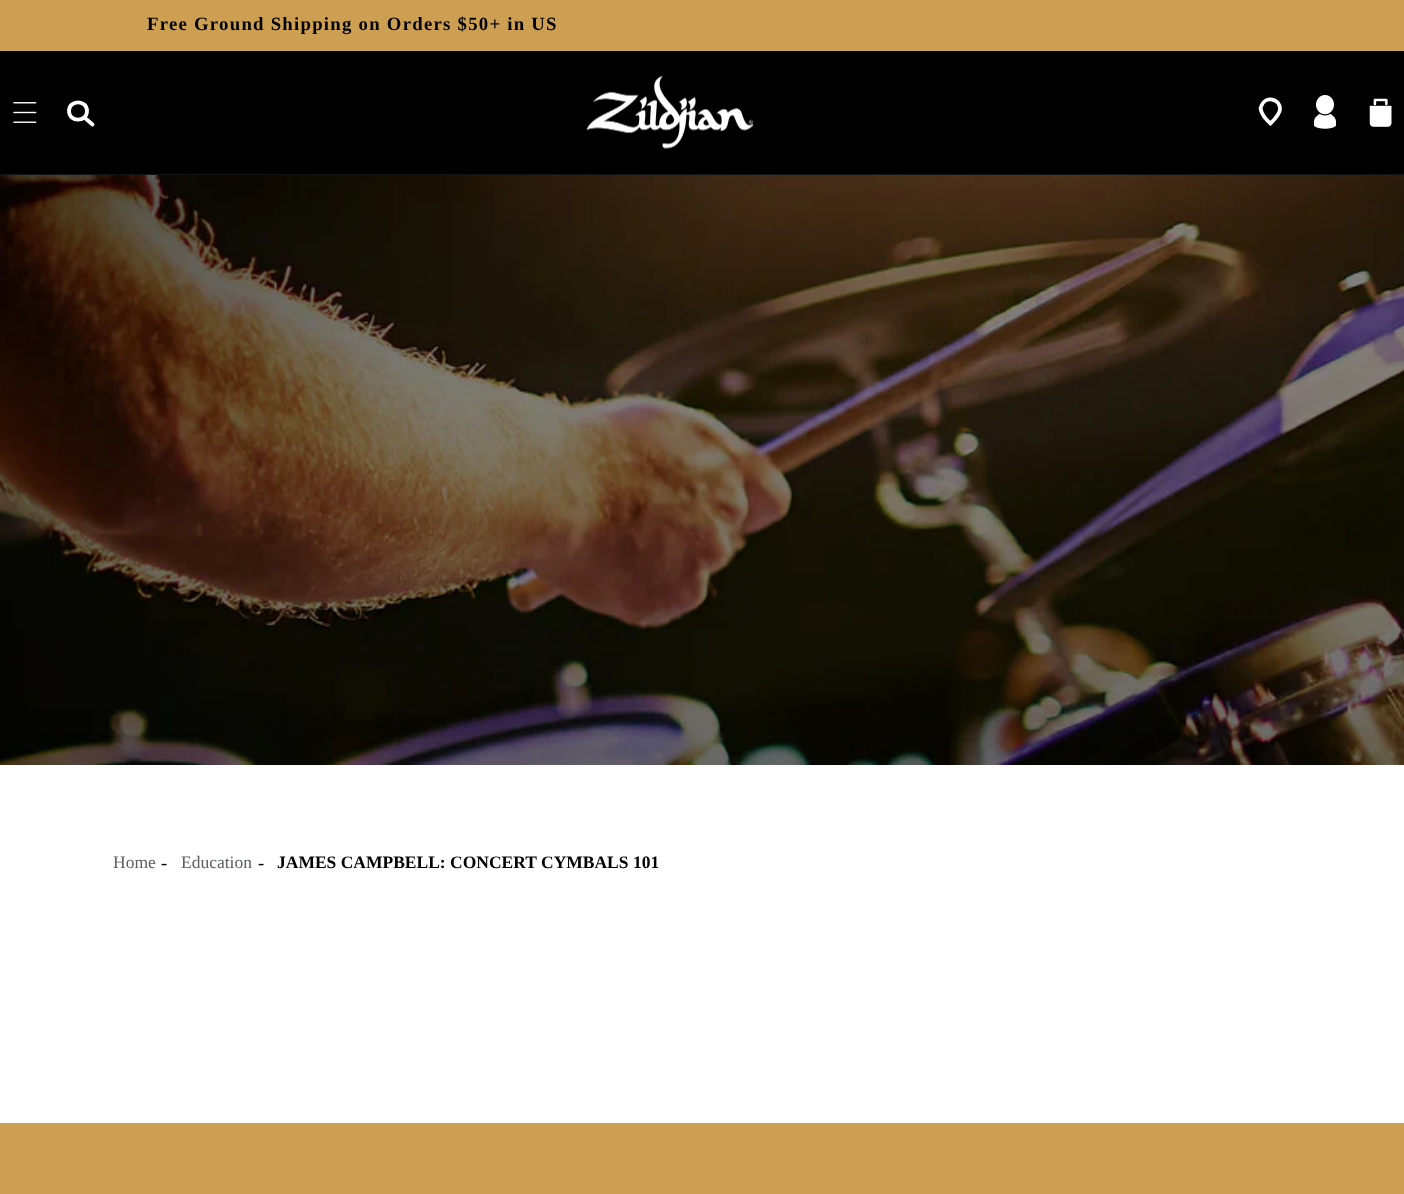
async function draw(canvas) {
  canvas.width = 1404;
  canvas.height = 1194;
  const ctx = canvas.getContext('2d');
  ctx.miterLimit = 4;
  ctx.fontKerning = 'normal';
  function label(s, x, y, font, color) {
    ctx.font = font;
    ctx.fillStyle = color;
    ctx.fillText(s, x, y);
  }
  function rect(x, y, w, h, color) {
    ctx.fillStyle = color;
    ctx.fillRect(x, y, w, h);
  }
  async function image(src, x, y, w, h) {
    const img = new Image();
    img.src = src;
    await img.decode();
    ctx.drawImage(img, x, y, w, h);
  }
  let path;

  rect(0, 0, 1404, 1194, '#fff');
  rect(0, 0, 1404, 50, '#cc9f53');
  rect(0, 50, 1404, 1, '#d0a761');
  ctx.letterSpacing = '1.25px';
  label('Free Ground Shipping on Orders $50+ in US', 147, 30, 'bold 18.75px Liberation Serif', '#000');
  rect(0, 51, 1404, 123, '#000');
  rect(0, 174, 1404, 1, '#141414');
  await image('assets/img1.png', 13, 102, 24, 21);
  path = new Path2D('M87 111C87 122.5 69 122.5 69 111C69 99.5 87 99.5 87 111Z');
  ctx.strokeStyle = '#fff';
  ctx.lineWidth = 3.8;
  ctx.stroke(path);
  path = new Path2D('M92.5 124.5L85 118');
  ctx.lineCap = 'round';
  ctx.stroke(path);
  await image('assets/img2.png', 586, 75, 168, 74);
  path = new Path2D('M1280 109C1280 113.5 1273.5 120.5 1270.5 123.5C1266.5 120 1262.5 115.5 1261 110.5C1260.5 109 1260.5 107 1261.5 105.5C1265.5 95.5 1280 98.5 1280 109Z');
  ctx.lineCap = 'butt';
  ctx.stroke(path);
  await image('assets/img3.png', 1314, 95, 22, 34);
  await image('assets/img4.png', 1369, 98, 23, 29);
  await image('assets/img5.png', 0, 175, 1404, 590);
  ctx.letterSpacing = '0px';
  label('Home', 113, 868, '17.5px Liberation Serif', '#5c5d60');
  ctx.letterSpacing = '1.25px';
  label('-', 161, 869, '18.75px Liberation Serif', '#000');
  ctx.letterSpacing = '0px';
  label('Education', 181, 868, '17.5px Liberation Serif', '#5c5d60');
  ctx.letterSpacing = '1.25px';
  label('-', 258, 869, '18.75px Liberation Serif', '#000');
  ctx.letterSpacing = '0px';
  label('JAMES CAMPBELL: CONCERT CYMBALS 101', 277, 868, 'bold 17.5px Liberation Serif', '#000');
  rect(0, 1123, 1404, 71, '#cc9f53');
}

draw(document.querySelector('canvas'));
